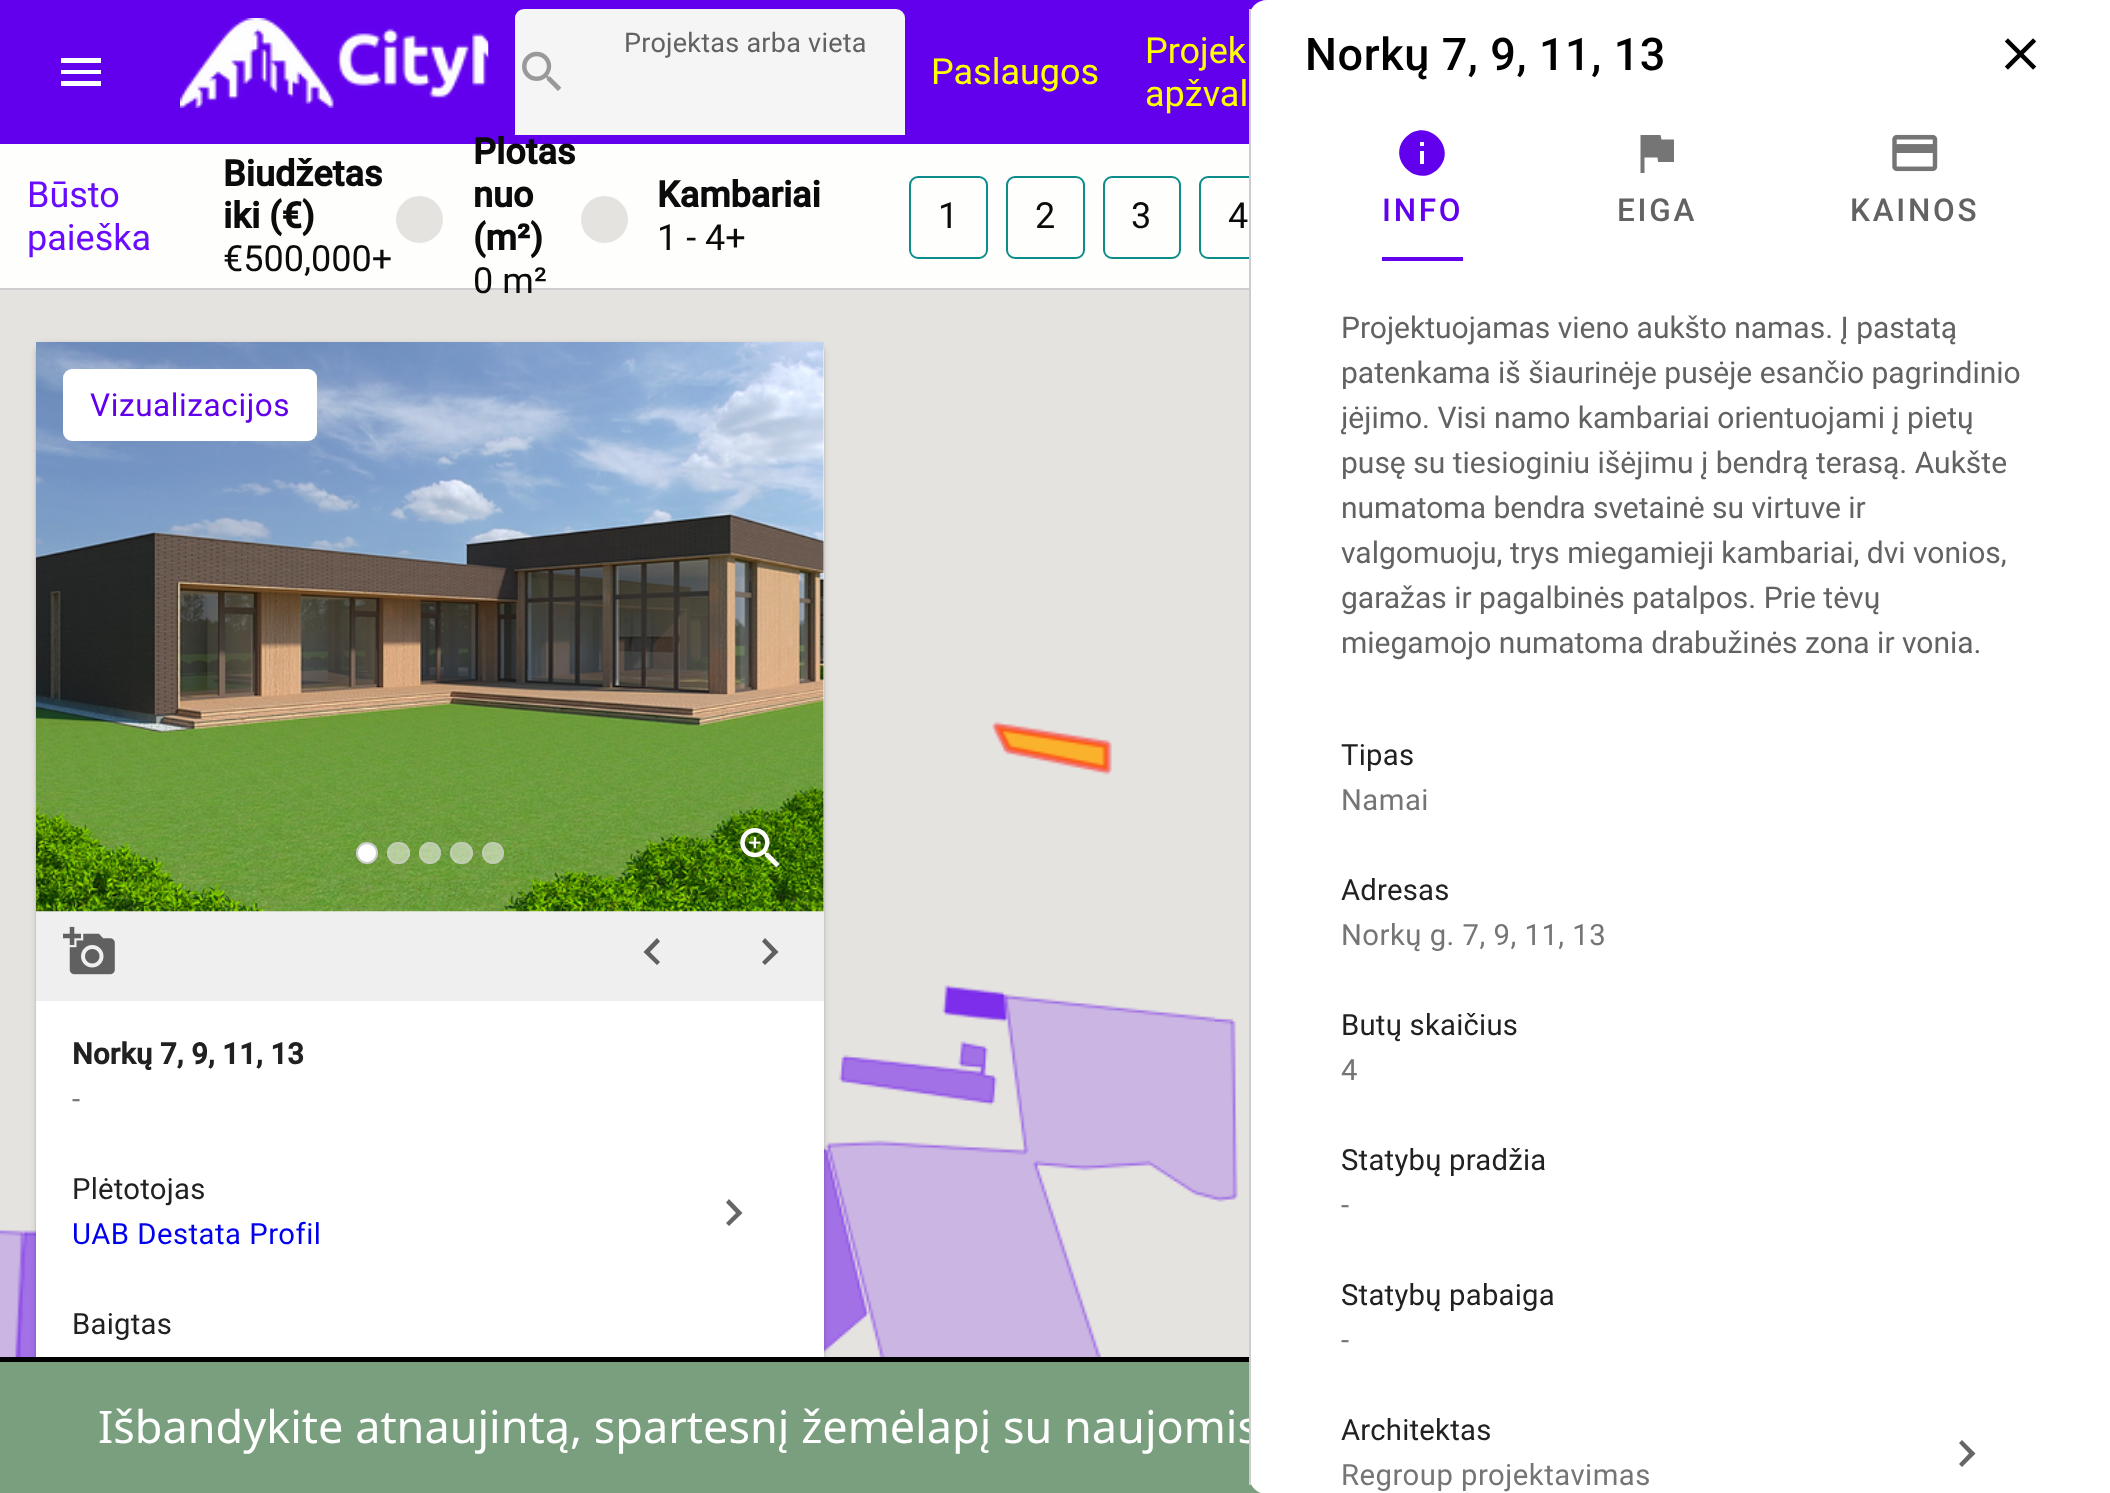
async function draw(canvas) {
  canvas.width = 2110;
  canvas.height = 1493;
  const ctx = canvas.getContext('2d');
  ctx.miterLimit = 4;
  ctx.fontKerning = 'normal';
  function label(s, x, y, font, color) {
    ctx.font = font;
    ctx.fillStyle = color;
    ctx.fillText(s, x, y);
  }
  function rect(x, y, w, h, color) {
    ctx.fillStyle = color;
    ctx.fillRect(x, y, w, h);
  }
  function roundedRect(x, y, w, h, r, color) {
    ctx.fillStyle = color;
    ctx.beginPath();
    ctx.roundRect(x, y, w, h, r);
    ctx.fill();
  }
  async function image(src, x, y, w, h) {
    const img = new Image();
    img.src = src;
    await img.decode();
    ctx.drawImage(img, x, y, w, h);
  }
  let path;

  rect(0, 0, 2110, 1493, '#e5e3df');
  rect(0, 0, 1267, 144, '#6200ee');
  ctx.fillStyle = '#fff';
  path = new Path2D('M61 58H101V63H61ZM61 74V70H101V74ZM61 86V81H101V86Z');
  ctx.fill(path);
  await image('assets/img1.png', 180, 18, 309, 90);
  ctx.fillStyle = '#f5f5f5';
  ctx.beginPath();
  ctx.roundRect(515, 9, 390, 126, [9, 9, 0, 0]);
  ctx.fill();
  ctx.letterSpacing = '0.25px';
  label('Projektas arba vieta', 624, 52, '27px Roboto', '#626262');
  await image('assets/img2.png', 522, 51, 40, 40);
  ctx.letterSpacing = '0px';
  label('Paslaugos', 931, 84, '36px Roboto', '#ff0');
  label('Projek', 1145, 63, '36px Roboto', '#ff0');
  label('apžval', 1145, 106, '36px Roboto', '#ff0');
  rect(0, 144, 1249, 144, '#fefefd');
  rect(0, 288, 1249, 2, '#cdcdcd');
  label('Būsto', 27, 207, '36px Roboto', '#690bfd');
  label('paieška', 27, 250, '36px Roboto', '#690bfd');
  label('Biudžetas', 223, 186, 'bold 36px Roboto', '#0b0b0b');
  label('iki (€)', 223, 228, 'bold 36px Roboto', '#0b0b0b');
  label('€500,000+', 223, 271, '36px Roboto', '#0b0b0b');
  ctx.fillStyle = '#e5e3df';
  ctx.beginPath();
  ctx.arc(419.5, 219.5, 23.5, 0, 2 * Math.PI);
  ctx.fill();
  label('Plotas', 473, 164, 'bold 36px Roboto', '#0b0b0b');
  label('nuo', 473, 207, 'bold 36px Roboto', '#0b0b0b');
  label('(m²)', 473, 250, 'bold 36px Roboto', '#0b0b0b');
  label('0 m²', 473, 293, '36px Roboto', '#0b0b0b');
  ctx.fillStyle = '#e5e3df';
  ctx.beginPath();
  ctx.arc(604.5, 219.5, 23.5, 0, 2 * Math.PI);
  ctx.fill();
  label('Kambariai', 657, 207, 'bold 36px Roboto', '#0b0b0b');
  label('1 - 4+', 657, 250, '36px Roboto', '#0b0b0b');
  ctx.beginPath();
  ctx.roundRect(910, 177, 77, 81, 8);
  ctx.strokeStyle = '#0c8c8a';
  ctx.lineWidth = 2;
  ctx.stroke();
  label('1', 938, 228, '36px Roboto', '#0b0b0b');
  ctx.beginPath();
  ctx.roundRect(1007, 177, 77, 81, 8);
  ctx.stroke();
  label('2', 1035, 228, '36px Roboto', '#0b0b0b');
  ctx.beginPath();
  ctx.roundRect(1104, 177, 76, 81, 8);
  ctx.stroke();
  label('3', 1131, 228, '36px Roboto', '#0b0b0b');
  ctx.beginPath();
  ctx.roundRect(1200, 177, 97, 81, 8);
  ctx.stroke();
  label('4', 1228, 228, '36px Roboto', '#0b0b0b');
  await image('assets/img7.png', 824, 985, 391, 372);
  await image('assets/img9.png', 0, 1230, 36, 127);
  ctx.fillStyle = '#0000001f';
  ctx.filter = 'blur(3.5px)';
  ctx.beginPath();
  ctx.roundRect(36, 344, 788, 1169, 9);
  ctx.fill();
  ctx.filter = 'none';
  ctx.fillStyle = '#00000024';
  ctx.filter = 'blur(1px)';
  ctx.beginPath();
  ctx.roundRect(36, 344, 788, 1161, 9);
  ctx.fill();
  ctx.filter = 'none';
  ctx.fillStyle = '#fff';
  path = new Path2D('M45 342H815C820 342 824 346 824 351V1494H36V351C36 346 40 342 45 342Z');
  ctx.fill(path);
  rect(36, 911, 788, 90, '#efefef');
  await image('assets/img3.png', 36, 342, 788, 570);
  ctx.fillStyle = '#fff';
  ctx.beginPath();
  ctx.arc(367, 853, 10, 0, 2 * Math.PI);
  ctx.fill();
  ctx.strokeStyle = '#ccc';
  ctx.stroke();
  roundedRect(387, 842, 23, 22, 11, '#ffffff80');
  ctx.beginPath();
  ctx.roundRect(388, 843, 21, 20, 10);
  ctx.strokeStyle = '#cccccc80';
  ctx.stroke();
  ctx.beginPath();
  ctx.arc(430, 853, 11, 0, 2 * Math.PI);
  ctx.fill();
  ctx.beginPath();
  ctx.arc(430, 853, 10, 0, 2 * Math.PI);
  ctx.stroke();
  roundedRect(450, 842, 23, 22, 11, '#ffffff80');
  ctx.beginPath();
  ctx.roundRect(451, 843, 21, 20, 10);
  ctx.stroke();
  ctx.beginPath();
  ctx.arc(493, 853, 11, 0, 2 * Math.PI);
  ctx.fill();
  ctx.beginPath();
  ctx.arc(493, 853, 10, 0, 2 * Math.PI);
  ctx.stroke();
  await image('assets/img4.png', 740, 828, 40, 40);
  roundedRect(63, 369, 254, 72, 9, '#fff');
  ctx.letterSpacing = '0.6px';
  label('Vizualizacijos', 90, 416, '31.5px Roboto', '#6200ee');
  await image('assets/img5.png', 63, 926, 52, 49);
  ctx.fillStyle = '#606060';
  path = new Path2D('M660 941.5L650 952L660 962L657 965L643.5 952L657 938Z');
  ctx.fill(path);
  path = new Path2D('M765 938L778.5 952L765 965L762 962L772 952L762 941.5Z');
  ctx.fill(path);
  ctx.letterSpacing = '0.25px';
  label('Norkų 7, 9, 11, 13', 72, 1064, 'bold 29.25px Roboto', '#212121');
  ctx.letterSpacing = '0.5px';
  label('-', 72, 1109, '29.25px Roboto', '#757575');
  ctx.letterSpacing = '0.25px';
  label('Plėtotojas', 72, 1199, '29.25px Roboto', '#212121');
  ctx.letterSpacing = '0.5px';
  label('UAB Destata Profil', 72, 1244, '29.25px Roboto', '#00e');
  ctx.fillStyle = '#666';
  path = new Path2D('M729 1199L742.5 1213L729 1226L726 1223L736 1213L726 1202.5Z');
  ctx.fill(path);
  ctx.letterSpacing = '0.25px';
  label('Baigtas', 72, 1334, '29.25px Roboto', '#212121');
  await image('assets/img6.png', 992, 721, 120, 54);
  await image('assets/img8.png', 1215, 1017, 23, 185);
  rect(0, 1362, 1261, 131, '#7a9f7e');
  rect(0, 1357, 1249, 5, '#000');
  ctx.letterSpacing = '0px';
  label('Išbandykite atnaujintą, spartesnį žemėlapį su naujomis', 98, 1443, '45px Noto Sans', '#fff');
  path = new Path2D('M1267 0H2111V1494H1267C1257 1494 1249 1486 1249 1476V18C1249 8 1257 0 1267 0Z');
  ctx.fill(path);
  rect(1249, 9, 2, 1476, '#ccc');
  ctx.letterSpacing = '0.6px';
  label('Norkų 7, 9, 11, 13', 1305, 70, '500 45px Roboto', '#000');
  await image('assets/img10.png', 2004, 38, 33, 32);
  ctx.fillStyle = '#6200ee';
  path = new Path2D('M1424 146V142H1420V146ZM1424 164V151H1420V164ZM1406 137C1427 116 1459 148 1438 169C1417 190 1385 158 1406 137Z');
  ctx.fill(path);
  ctx.letterSpacing = '2.75px';
  label('INFO', 1382, 221, '500 31.5px Roboto', '#6200ee');
  rect(1382, 257, 81, 4, '#6200ee');
  ctx.fillStyle = '#757575';
  path = new Path2D('M1661.5 139.5H1674V162H1658L1657.5 157.5H1644.5V173H1640.5V135H1660.5Z');
  ctx.fill(path);
  label('EIGA', 1617, 221, '500 31.5px Roboto', '#626262');
  await image('assets/img11.png', 1892, 134, 46, 38);
  label('KAINOS', 1850, 221, '500 31.5px Roboto', '#626262');
  ctx.letterSpacing = '0px';
  label('Projektuojamas vieno aukšto namas. Į pastatą', 1341, 338, '30px Roboto', '#626262');
  label('patenkama iš šiaurinėje pusėje esančio pagrindinio', 1341, 383, '30px Roboto', '#626262');
  label('įėjimo. Visi namo kambariai orientuojami į pietų', 1341, 428, '30px Roboto', '#626262');
  label('pusę su tiesioginiu išėjimu į bendrą terasą. Aukšte', 1341, 473, '30px Roboto', '#626262');
  label('numatoma bendra svetainė su virtuve ir', 1341, 518, '30px Roboto', '#626262');
  label('valgomuoju, trys miegamieji kambariai, dvi vonios,', 1341, 563, '30px Roboto', '#626262');
  label('garažas ir pagalbinės patalpos. Prie tėvų', 1341, 608, '30px Roboto', '#626262');
  label('miegamojo numatoma drabužinės zona ir vonia.', 1341, 653, '30px Roboto', '#626262');
  ctx.letterSpacing = '0.25px';
  label('Tipas', 1341, 765, '29.25px Roboto', '#212121');
  ctx.letterSpacing = '0.5px';
  label('Namai', 1341, 810, '29.25px Roboto', '#757575');
  ctx.letterSpacing = '0.25px';
  label('Adresas', 1341, 900, '29.25px Roboto', '#212121');
  ctx.letterSpacing = '0.5px';
  label('Norkų g. 7, 9, 11, 13', 1341, 945, '29.25px Roboto', '#757575');
  ctx.letterSpacing = '0.25px';
  label('Butų skaičius', 1341, 1035, '29.25px Roboto', '#212121');
  ctx.letterSpacing = '0.5px';
  label('4', 1341, 1080, '29.25px Roboto', '#757575');
  ctx.letterSpacing = '0.25px';
  label('Statybų pradžia', 1341, 1170, '29.25px Roboto', '#212121');
  ctx.letterSpacing = '0.5px';
  label('-', 1341, 1215, '29.25px Roboto', '#757575');
  ctx.letterSpacing = '0.25px';
  label('Statybų pabaiga', 1341, 1305, '29.25px Roboto', '#212121');
  ctx.letterSpacing = '0.5px';
  label('-', 1341, 1350, '29.25px Roboto', '#757575');
  ctx.letterSpacing = '0.25px';
  label('Architektas', 1341, 1440, '29.25px Roboto', '#212121');
  ctx.letterSpacing = '0.5px';
  label('Regroup projektavimas', 1341, 1485, '29.25px Roboto', '#757575');
  ctx.fillStyle = '#666';
  path = new Path2D('M1962 1440L1975.5 1453.5L1962 1467L1959 1464L1969 1453.5L1959 1443Z');
  ctx.fill(path);
}

draw(document.querySelector('canvas'));
